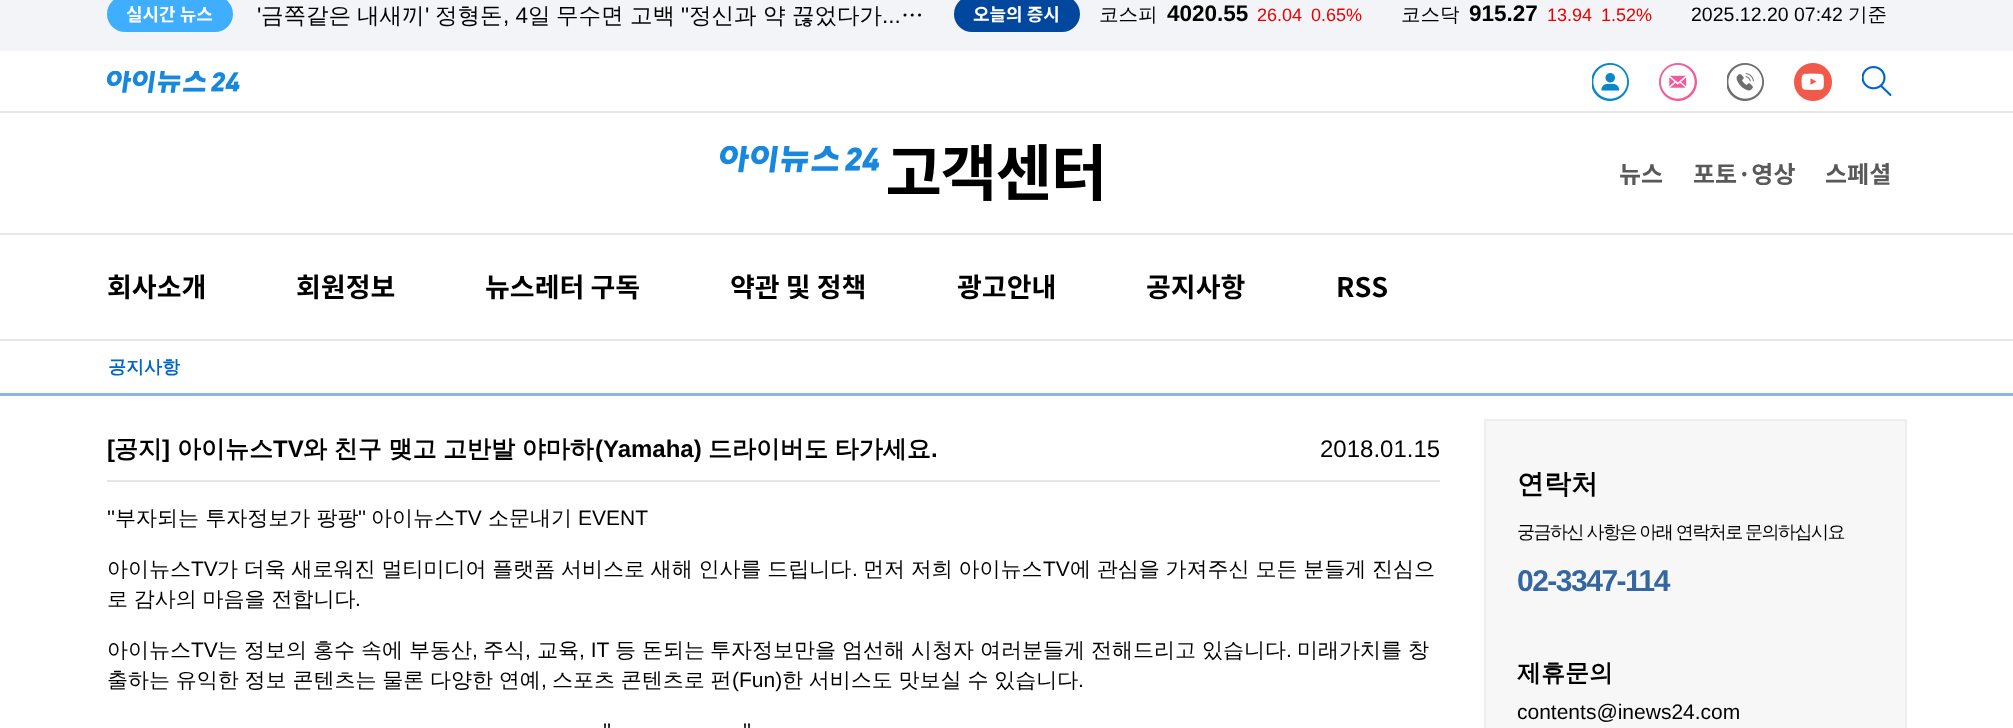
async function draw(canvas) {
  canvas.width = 2013;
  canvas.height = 728;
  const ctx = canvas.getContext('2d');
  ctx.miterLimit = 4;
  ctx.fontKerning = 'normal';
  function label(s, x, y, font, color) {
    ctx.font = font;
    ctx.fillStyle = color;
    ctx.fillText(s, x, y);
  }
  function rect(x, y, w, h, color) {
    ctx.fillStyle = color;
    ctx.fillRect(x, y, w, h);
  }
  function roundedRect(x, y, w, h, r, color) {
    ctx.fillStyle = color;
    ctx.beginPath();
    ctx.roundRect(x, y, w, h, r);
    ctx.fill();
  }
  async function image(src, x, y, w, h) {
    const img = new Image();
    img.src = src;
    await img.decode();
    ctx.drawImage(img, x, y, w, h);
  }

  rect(0, 0, 2013, 728, '#fff');
  rect(0, 0, 2013, 51, '#f3f4f8');
  roundedRect(107, -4, 126, 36, 18, '#3faeff');
  label('실시간 뉴스', 126, 21, 'bold 18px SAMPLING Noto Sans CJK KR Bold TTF', '#fff');
  label('\'', 257, 23, '22.5px Liberation Sans', '#000');
  label('금쪽같은', 261, 23, '500 22.5px WenQuanYi Zen Hei', '#000');
  label('내새끼', 357, 23, '500 22.5px WenQuanYi Zen Hei', '#000');
  label('\'', 425, 23, '22.5px Liberation Sans', '#000');
  label('정형돈', 435, 23, '500 22.5px WenQuanYi Zen Hei', '#000');
  label(', 4', 503, 23, '22.5px Liberation Sans', '#000');
  label('일', 528, 23, '500 22.5px WenQuanYi Zen Hei', '#000');
  label('무수면', 556, 23, '500 22.5px WenQuanYi Zen Hei', '#000');
  label('고백', 630, 23, '500 22.5px WenQuanYi Zen Hei', '#000');
  label('"', 681, 23, '22.5px Liberation Sans', '#000');
  label('정신과', 689, 23, '500 22.5px WenQuanYi Zen Hei', '#000');
  label('약', 763, 23, '500 22.5px WenQuanYi Zen Hei', '#000');
  label('끊었다가', 792, 23, '500 22.5px WenQuanYi Zen Hei', '#000');
  label('…', 901, 23, '500 22.5px WenQuanYi Zen Hei', '#000');
  label('...', 882, 23, '22.5px Liberation Sans', '#000');
  roundedRect(954, -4, 126, 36, 18, '#01479d');
  label('오늘의 증시', 973, 21, 'bold 18px SAMPLING Noto Sans CJK KR Bold TTF', '#fff');
  label('코스피', 1099, 21, '500 19.5px WenQuanYi Zen Hei', '#000');
  label('4020.55', 1167, 21, 'bold 22.5px Liberation Sans', '#000');
  label('26.04', 1257, 21, '18px Liberation Sans', '#eb0001');
  label('0.65%', 1311, 21, '18px Liberation Sans', '#eb0001');
  label('코스닥', 1401, 21, '500 19.5px WenQuanYi Zen Hei', '#000');
  label('915.27', 1469, 21, 'bold 22.5px Liberation Sans', '#000');
  label('13.94', 1547, 21, '18px Liberation Sans', '#eb0001');
  label('1.52%', 1601, 21, '18px Liberation Sans', '#eb0001');
  label('2025.12.20 07:42', 1691, 21, '19.5px Liberation Sans', '#000');
  label('기준', 1848, 21, '500 19.5px WenQuanYi Zen Hei', '#000');
  await image('assets/img1.png', 107, 71, 133, 22);
  await image('assets/img2.png', 1592, 63, 37, 38);
  await image('assets/img3.png', 1659, 63, 38, 38);
  await image('assets/img4.png', 1727, 63, 37, 38);
  await image('assets/img5.png', 1794, 63, 38, 38);
  await image('assets/img6.png', 1862, 66, 30, 30);
  rect(0, 111, 2013, 2, '#e6e6e6');
  await image('assets/img7.png', 720, 146, 159, 27);
  await image('assets/img8.png', 888, 144, 213, 57);
  label('뉴스', 1619, 183, 'bold 24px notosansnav', '#595959');
  label('포토·영상', 1693, 183, 'bold 24px notosansnav', '#595959');
  label('스페셜', 1825, 183, 'bold 24px notosansnav', '#595959');
  rect(0, 233, 2013, 2, '#e6e6e6');
  label('회사소개', 107, 297, 'bold 27px notosansnav', '#000');
  label('회원정보', 296, 297, 'bold 27px notosansnav', '#000');
  label('뉴스레터 구독', 485, 297, 'bold 27px notosansnav', '#000');
  label('약관 및 정책', 730, 297, 'bold 27px notosansnav', '#000');
  label('광고안내', 957, 297, 'bold 27px notosansnav', '#000');
  label('공지사항', 1146, 297, 'bold 27px notosansnav', '#000');
  label('RSS', 1336, 297, 'bold 27px notosansnav', '#000');
  rect(0, 339, 2013, 2, '#e6e6e6');
  label('공지사항', 108, 373, 'bold 18px WenQuanYi Zen Hei', '#06c');
  rect(0, 393, 2013, 3, '#8db6e4');
  label('[', 107, 457, 'bold 24px Liberation Sans', '#000');
  label('공지', 114, 457, 'bold 24px WenQuanYi Zen Hei', '#000');
  label(']', 162, 457, 'bold 24px Liberation Sans', '#000');
  label('아이뉴스', 177, 457, 'bold 24px WenQuanYi Zen Hei', '#000');
  label('TV', 273, 457, 'bold 24px Liberation Sans', '#000');
  ctx.wordSpacing = '-0.5px';
  label('와 친구 맺고 고반발 야마하', 303, 457, 'bold 24px WenQuanYi Zen Hei', '#000');
  ctx.wordSpacing = '0px';
  label('(Yamaha)', 595, 457, 'bold 24px Liberation Sans', '#000');
  ctx.wordSpacing = '-0.5px';
  label('드라이버도 타가세요', 708, 457, 'bold 24px WenQuanYi Zen Hei', '#000');
  ctx.wordSpacing = '0px';
  label('.', 931, 457, 'bold 24px Liberation Sans', '#000');
  label('2018.01.15', 1320, 457, '24px Liberation Sans', '#000');
  rect(107, 480, 1333, 2, '#e6e6e6');
  label('\'\'', 107, 525, '21px Liberation Sans', '#000');
  label('부자되는 투자정보가 팡팡', 115, 525, '500 21px WenQuanYi Zen Hei', '#000');
  label('\'\'', 358, 525, '21px Liberation Sans', '#000');
  label('아이뉴스', 371, 525, '500 21px WenQuanYi Zen Hei', '#000');
  label('TV', 455, 525, '21px Liberation Sans', '#000');
  label('소문내기', 488, 525, '500 21px WenQuanYi Zen Hei', '#000');
  label('EVENT', 578, 525, '21px Liberation Sans', '#000');
  label('아이뉴스', 107, 576, '500 21px WenQuanYi Zen Hei', '#000');
  label('TV', 191, 576, '21px Liberation Sans', '#000');
  ctx.wordSpacing = '-0.5px';
  label('가 더욱 새로워진 멀티미디어 플랫폼 서비스로 새해 인사를 드립니다', 217, 576, '500 21px WenQuanYi Zen Hei', '#000');
  ctx.wordSpacing = '0px';
  label('.', 852, 576, '21px Liberation Sans', '#000');
  ctx.wordSpacing = '-0.5px';
  label('먼저 저희 아이뉴스', 863, 576, '500 21px WenQuanYi Zen Hei', '#000');
  ctx.wordSpacing = '0px';
  label('TV', 1043, 576, '21px Liberation Sans', '#000');
  ctx.wordSpacing = '-0.5px';
  label('에 관심을 가져주신 모든 분들게 진심으', 1070, 576, '500 21px WenQuanYi Zen Hei', '#000');
  label('로 감사의 마음을 전합니다', 107, 606, '500 21px WenQuanYi Zen Hei', '#000');
  ctx.wordSpacing = '0px';
  label('.', 355, 606, '21px Liberation Sans', '#000');
  label('아이뉴스', 107, 657, '500 21px WenQuanYi Zen Hei', '#000');
  label('TV', 191, 657, '21px Liberation Sans', '#000');
  label('는', 217, 657, '500 21px WenQuanYi Zen Hei', '#000');
  label('정보의', 244, 657, '500 21px WenQuanYi Zen Hei', '#000');
  label('홍수', 313, 657, '500 21px WenQuanYi Zen Hei', '#000');
  label('속에', 361, 657, '500 21px WenQuanYi Zen Hei', '#000');
  label('부동산', 409, 657, '500 21px WenQuanYi Zen Hei', '#000');
  label(',', 472, 657, '21px Liberation Sans', '#000');
  label('주식', 483, 657, '500 21px WenQuanYi Zen Hei', '#000');
  label(',', 525, 657, '21px Liberation Sans', '#000');
  label('교육', 537, 657, '500 21px WenQuanYi Zen Hei', '#000');
  label(', IT', 579, 657, '21px Liberation Sans', '#000');
  label('등', 615, 657, '500 21px WenQuanYi Zen Hei', '#000');
  label('돈되는', 642, 657, '500 21px WenQuanYi Zen Hei', '#000');
  label('투자정보만을', 710, 657, '500 21px WenQuanYi Zen Hei', '#000');
  label('엄선해', 842, 657, '500 21px WenQuanYi Zen Hei', '#000');
  label('시청자', 911, 657, '500 21px WenQuanYi Zen Hei', '#000');
  label('여러분들게', 980, 657, '500 21px WenQuanYi Zen Hei', '#000');
  label('전해드리고', 1091, 657, '500 21px WenQuanYi Zen Hei', '#000');
  label('있습니다', 1202, 657, '500 21px WenQuanYi Zen Hei', '#000');
  label('.', 1286, 657, '21px Liberation Sans', '#000');
  label('미래가치를', 1297, 657, '500 21px WenQuanYi Zen Hei', '#000');
  label('창', 1408, 657, '500 21px WenQuanYi Zen Hei', '#000');
  ctx.wordSpacing = '-0.5px';
  label('출하는 유익한 정보 콘텐츠는 물론 다양한 연예', 107, 687, '500 21px WenQuanYi Zen Hei', '#000');
  ctx.wordSpacing = '0px';
  label(',', 541, 687, '21px Liberation Sans', '#000');
  ctx.wordSpacing = '-0.5px';
  label('스포츠 콘텐츠로 펀', 552, 687, '500 21px WenQuanYi Zen Hei', '#000');
  ctx.wordSpacing = '0px';
  label('(Fun)', 732, 687, '21px Liberation Sans', '#000');
  ctx.wordSpacing = '-0.5px';
  label('한 서비스도 맛보실 수 있습니다', 782, 687, '500 21px WenQuanYi Zen Hei', '#000');
  ctx.wordSpacing = '0px';
  label('.', 1078, 687, '21px Liberation Sans', '#000');
  label('\'\'', 603, 738, '21px Liberation Sans', '#000');
  label('\'\'', 743, 738, '21px Liberation Sans', '#000');
  ctx.fillStyle = '#f7f7f7';
  ctx.beginPath();
  ctx.rect(1485, 420, 421, 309);
  ctx.fill();
  ctx.strokeStyle = '#eee';
  ctx.lineWidth = 2;
  ctx.stroke();
  label('연락처', 1517, 493, 'bold 27px WenQuanYi Zen Hei', '#000');
  ctx.letterSpacing = '-1.5px';
  ctx.wordSpacing = '-0.5px';
  label('궁금하신 사항은 아래 연락처로 문의하십시요', 1517, 538, '500 18px WenQuanYi Zen Hei', '#000');
  ctx.wordSpacing = '0px';
  label('02-3347-114', 1517, 591, 'bold 30px Liberation Sans', '#34669f');
  ctx.letterSpacing = '0px';
  label('제휴문의', 1517, 681, 'bold 24px WenQuanYi Zen Hei', '#000');
  label('contents@inews24.com', 1517, 719, '21px Liberation Sans', '#000');
}

draw(document.querySelector('canvas'));
